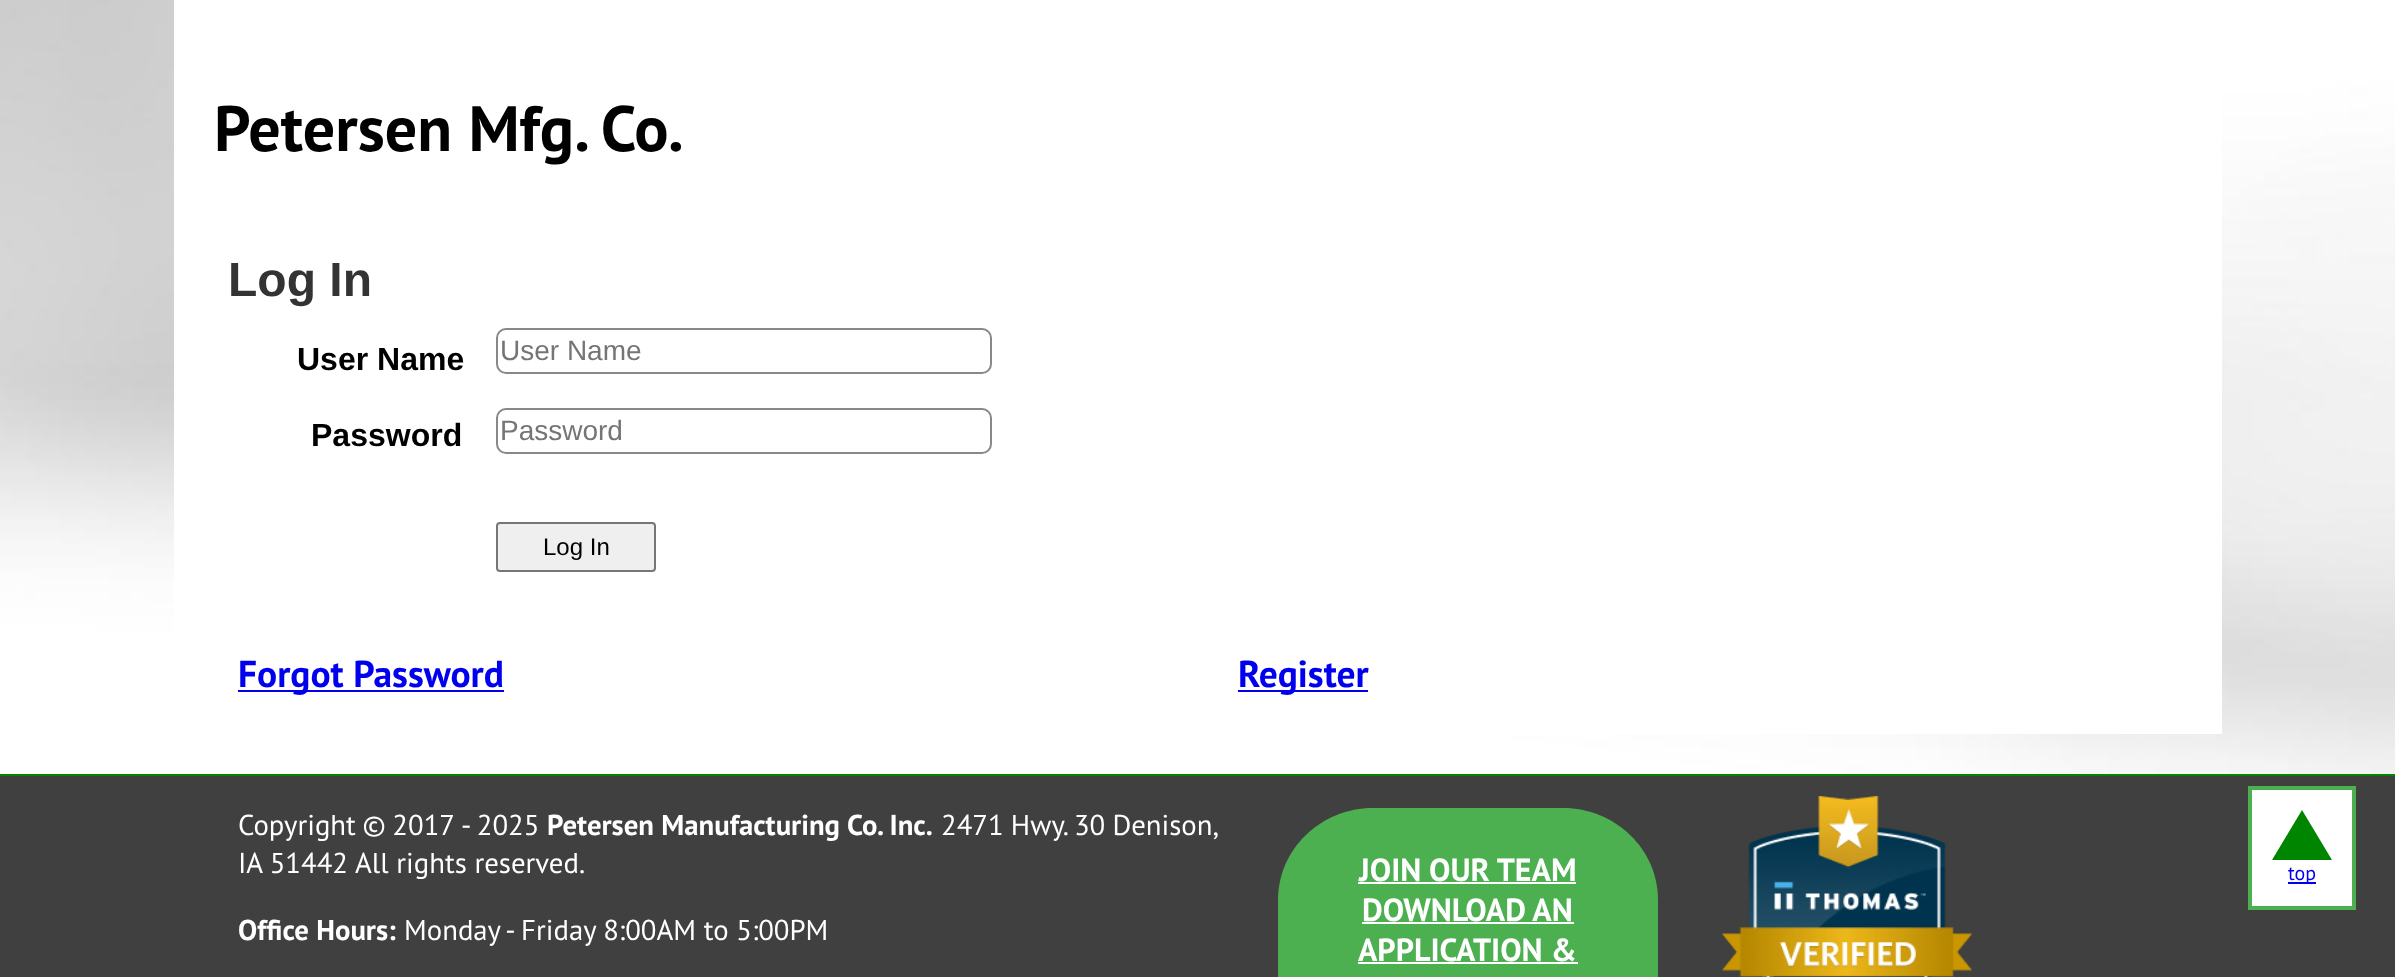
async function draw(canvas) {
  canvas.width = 2395;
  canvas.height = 977;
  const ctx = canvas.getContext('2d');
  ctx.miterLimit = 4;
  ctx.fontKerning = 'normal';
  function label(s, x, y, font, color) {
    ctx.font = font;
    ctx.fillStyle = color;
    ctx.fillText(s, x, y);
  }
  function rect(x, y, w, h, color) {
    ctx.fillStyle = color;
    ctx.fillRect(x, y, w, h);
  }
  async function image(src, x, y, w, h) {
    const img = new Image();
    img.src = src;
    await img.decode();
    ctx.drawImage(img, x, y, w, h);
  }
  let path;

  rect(0, 0, 2395, 977, '#fff');
  await image('assets/img1.png', 0, 0, 2395, 774);
  rect(174, 0, 2048, 734, '#fff');
  label('Petersen Mfg. Co.', 214, 151, 'bold 64px PT Sans', '#000');
  label('Log In', 228, 296, 'bold 48px Liberation Sans', '#333');
  label('User Name', 297, 370, 'bold 32px Liberation Sans', '#000');
  ctx.beginPath();
  ctx.roundRect(497, 329, 494, 44, 9);
  ctx.strokeStyle = '#888';
  ctx.lineWidth = 2;
  ctx.stroke();
  label('User Name', 500, 360, '28px Liberation Sans', '#757575');
  label('Password', 311, 446, 'bold 32px Liberation Sans', '#000');
  ctx.beginPath();
  ctx.roundRect(497, 409, 494, 44, 9);
  ctx.stroke();
  label('Password', 500, 440, '28px Liberation Sans', '#757575');
  ctx.fillStyle = '#efefef';
  ctx.beginPath();
  ctx.roundRect(497, 523, 158, 48, 3);
  ctx.fill();
  ctx.strokeStyle = '#767676';
  ctx.stroke();
  label('Log In', 543, 555, '24px Liberation Sans', '#000');
  rect(238, 690, 266, 2, '#00e');
  label('Forgot Password', 238, 687, 'bold 37.5px PT Sans', '#00e');
  rect(1238, 690, 130, 2, '#00e');
  label('Register', 1238, 687, 'bold 37.5px PT Sans', '#00e');
  rect(0, 776, 2395, 201, '#404040');
  rect(0, 774, 2395, 2, '#008500');
  ctx.wordSpacing = '-1px';
  label('Copyright © 2017', 238, 835, '28.75px PT Sans', '#fff');
  ctx.wordSpacing = '0px';
  label('- 2025', 461, 835, '28.75px PT Sans', '#fff');
  label('Petersen Manufacturing Co. Inc.', 547, 835, 'bold 28.75px PT Sans', '#fff');
  ctx.wordSpacing = '-0.5px';
  label('2471 Hwy. 30 Denison,', 941, 835, '28.75px PT Sans', '#fff');
  ctx.wordSpacing = '0px';
  label('IA 51442', 238, 873, '28.75px PT Sans', '#fff');
  label('All rights reserved.', 355, 873, '28.75px PT Sans', '#fff');
  label('Office Hours:', 238, 940, 'bold 28.75px PT Sans', '#fff');
  label('Monday - Friday 8:00AM to 5:00PM', 404, 940, '28.75px PT Sans', '#fff');
  ctx.fillStyle = '#4caf50';
  path = new Path2D('M1373 808H1563C1615 808 1658 849 1658 900V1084C1658 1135 1615 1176 1563 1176H1373C1321 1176 1278 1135 1278 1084V900C1278 849 1321 808 1373 808Z');
  ctx.fill(path);
  label('JOIN OUR TEAM', 1359, 881, 'bold 32px PT Sans', '#fff');
  rect(1358, 882, 218, 2, '#fff');
  label('DOWNLOAD AN', 1362, 921, 'bold 32px PT Sans', '#fff');
  rect(1362, 922, 212, 2, '#fff');
  label('APPLICATION &', 1358, 961, 'bold 32px PT Sans', '#fff');
  rect(1358, 962, 220, 2, '#fff');
  await image('assets/img2.png', 1722, 796, 250, 181);
  ctx.beginPath();
  ctx.rect(2250, 788, 104, 120);
  ctx.fill();
  ctx.strokeStyle = '#4caf50';
  ctx.lineWidth = 4;
  ctx.stroke();
  ctx.fillStyle = '#008500';
  path = new Path2D('M2332 860H2272L2302 810Z');
  ctx.fill(path);
  rect(2288, 882, 28, 2, '#00e');
  label('top', 2288, 880, '20px PT Sans', '#00e');
}

draw(document.querySelector('canvas'));
